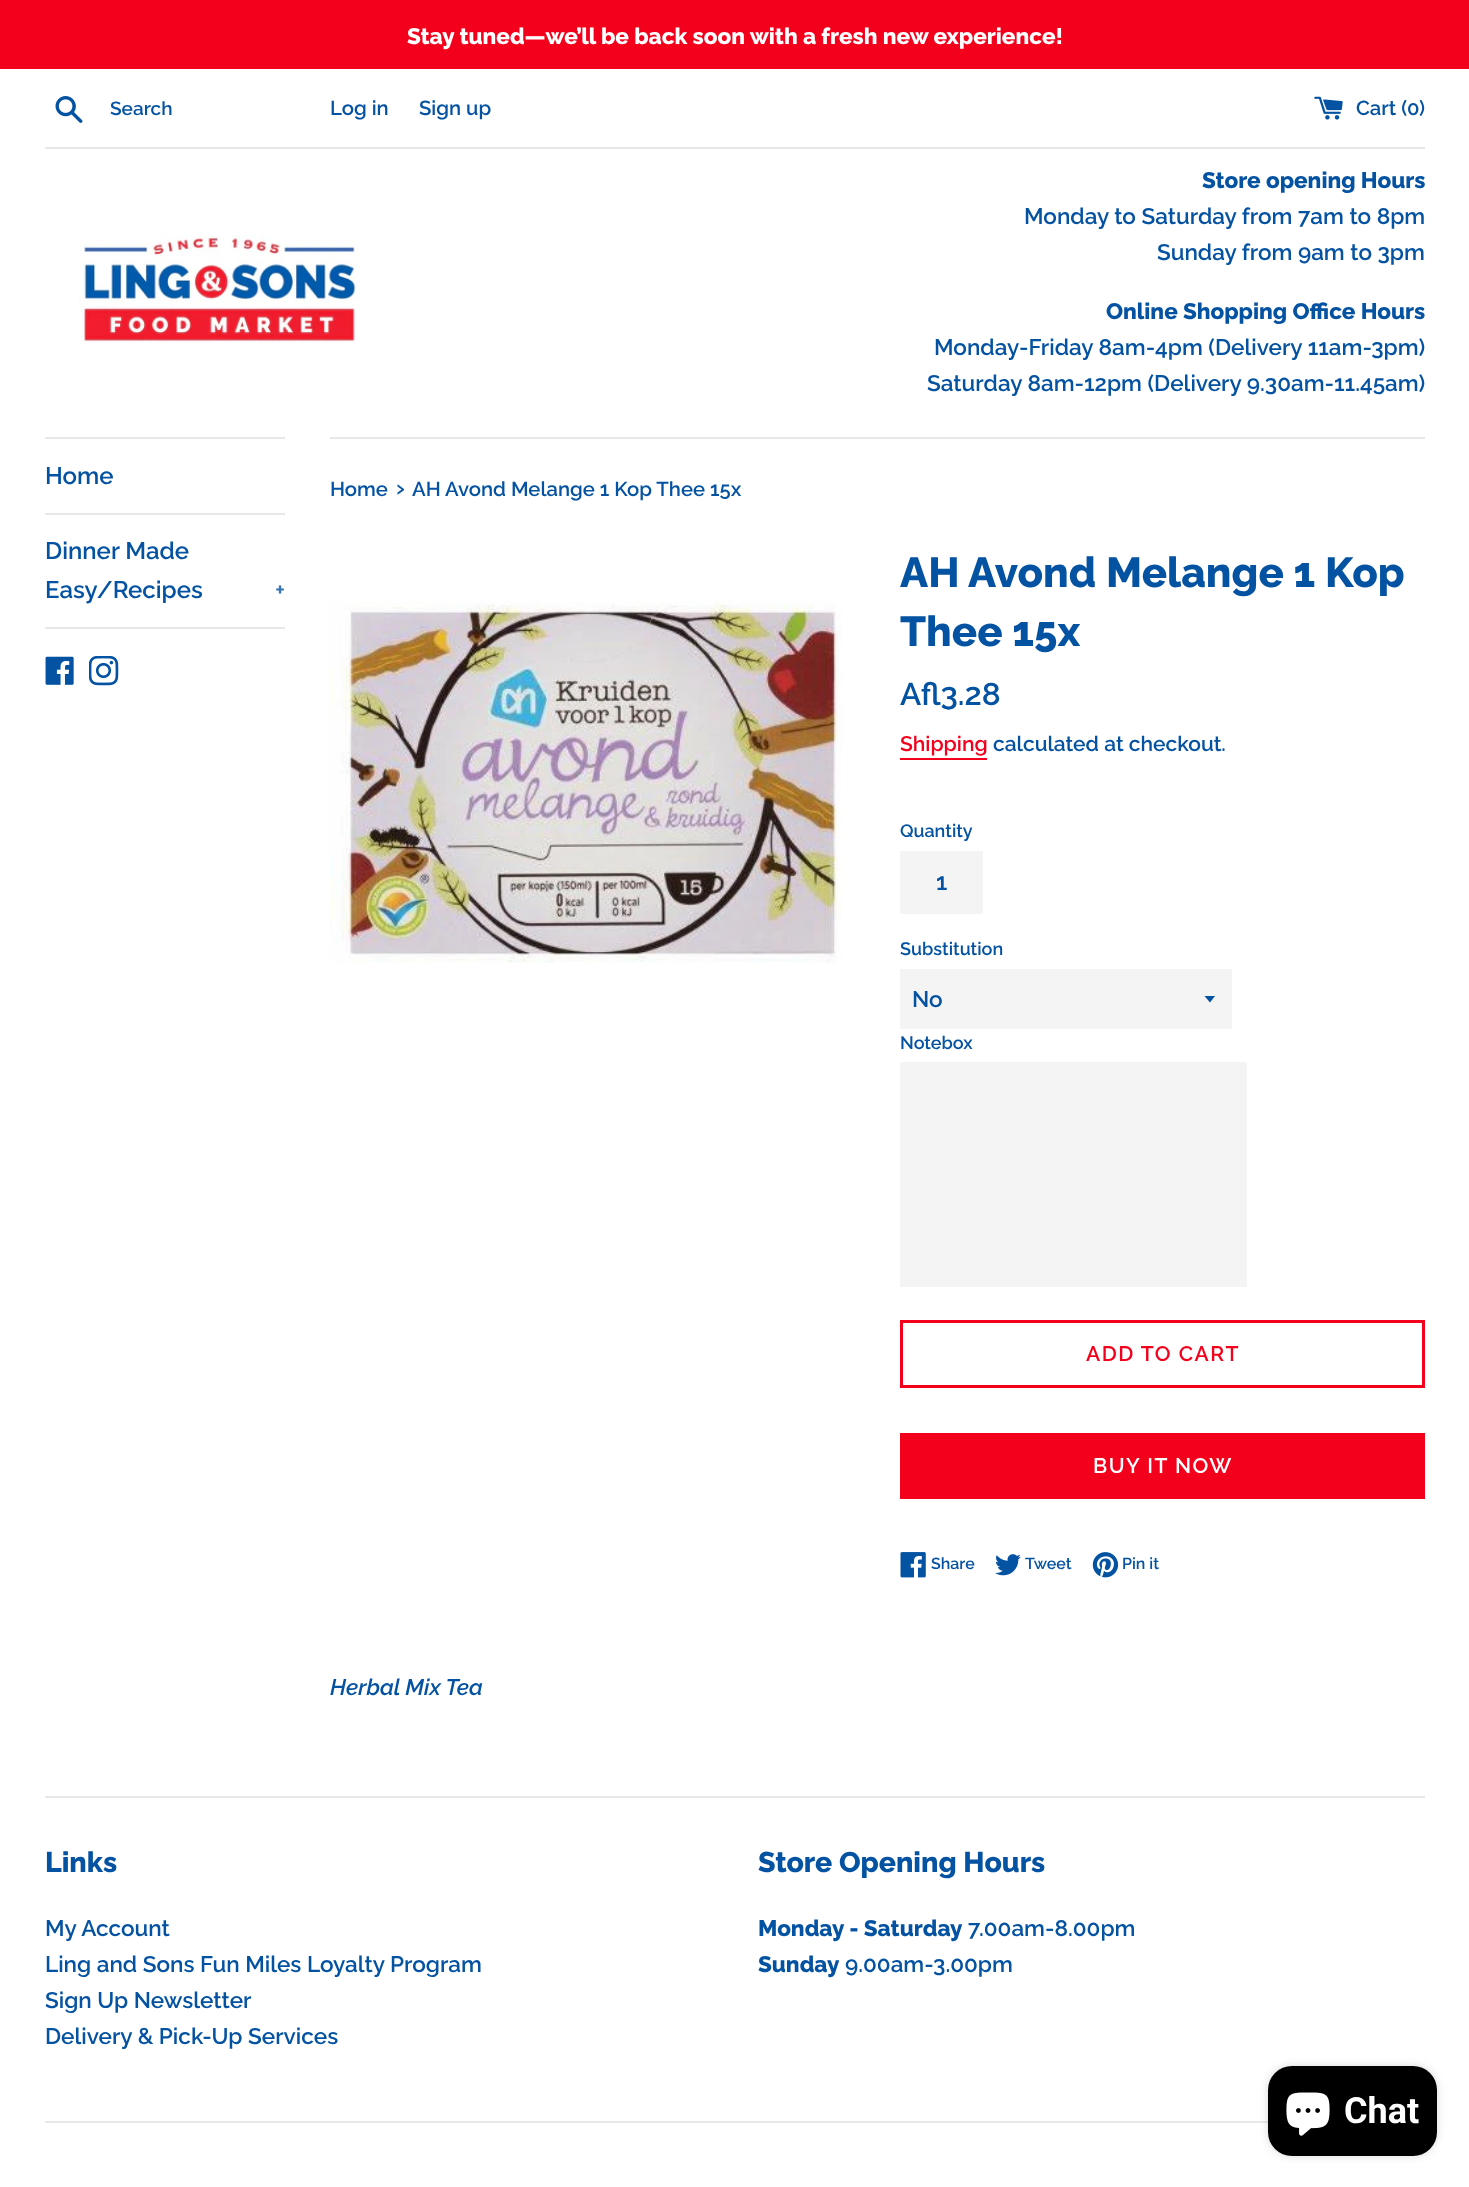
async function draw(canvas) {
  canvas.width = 1469;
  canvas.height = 2187;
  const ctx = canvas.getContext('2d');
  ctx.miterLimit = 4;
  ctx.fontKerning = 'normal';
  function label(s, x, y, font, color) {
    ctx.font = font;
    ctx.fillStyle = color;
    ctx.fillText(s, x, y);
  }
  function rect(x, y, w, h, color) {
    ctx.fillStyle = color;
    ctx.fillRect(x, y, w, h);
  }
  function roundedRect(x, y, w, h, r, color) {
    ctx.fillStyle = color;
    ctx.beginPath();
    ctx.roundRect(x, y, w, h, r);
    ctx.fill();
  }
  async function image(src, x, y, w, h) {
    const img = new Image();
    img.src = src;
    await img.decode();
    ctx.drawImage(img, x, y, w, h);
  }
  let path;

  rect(0, 0, 1469, 2187, '#fff');
  rect(0, 0, 1469, 69, '#f3001c');
  label('Stay tuned—we’ll be back soon with a fresh new experience!', 407, 44, '800 22.5px Raleway', '#fff');
  await image('assets/img1.png', 55, 96, 28, 27);
  label('Search', 110, 115, '600 19px Raleway', '#0452a2');
  label('Log in', 330, 115, '600 20.25px Raleway', '#0452a2');
  label('Sign up', 419, 115, '600 20.25px Raleway', '#0452a2');
  await image('assets/img2.png', 1314, 96, 29, 24);
  label('Cart (', 1356, 115, '600 20.25px Raleway', '#0452a2');
  label('0', 1407, 115, '600 20.25px Raleway', '#0452a2');
  label(')', 1419, 115, '600 20.25px Raleway', '#0452a2');
  rect(45, 147, 1380, 2, '#e8e8e8');
  await image('assets/img3.png', 78, 235, 284, 108);
  label('Store opening Hours', 1202, 188, '800 22.5px Raleway', '#0452a2');
  label('Monday to Saturday from 7am to 8pm', 1024, 224, '600 22.5px Raleway', '#0452a2');
  label('Sunday from 9am to 3pm', 1157, 260, '600 22.5px Raleway', '#0452a2');
  label('Online Shopping Office Hours', 1106, 319, '800 22.5px Raleway', '#0452a2');
  label('Monday-Friday 8am-4pm (Delivery 11am-3pm)', 934, 355, '600 22.5px Raleway', '#0452a2');
  label('Saturday 8am-12pm (Delivery 9.30am-11.45am)', 927, 391, '600 22.5px Raleway', '#0452a2');
  rect(45, 437, 240, 2, '#e8e8e8');
  rect(45, 513, 240, 2, '#e8e8e8');
  label('Home', 45, 484, '600 24px Raleway', '#0452a2');
  rect(45, 627, 240, 2, '#e8e8e8');
  label('Dinner Made', 45, 559, '600 24px Raleway', '#0452a2');
  label('Easy/Recipes', 45, 598, '600 24px Raleway', '#0452a2');
  label('+', 275, 598, '600 24px Raleway', '#3675b5');
  await image('assets/img4.png', 45, 656, 29, 29);
  await image('assets/img5.png', 89, 656, 30, 30);
  rect(330, 437, 1095, 2, '#e8e8e8');
  label('Home', 330, 496, '600 20.25px Raleway', '#0452a2');
  label('›', 396, 496, '600 25px Raleway', '#0452a2');
  label('AH Avond Melange 1 Kop Thee 15x', 412, 496, '600 20.25px Raleway', '#0452a2');
  await image('assets/img6.png', 330, 601, 513, 362);
  label('AH Avond Melange 1 Kop', 900, 587, '800 42px Raleway', '#0452a2');
  label('Thee 15x', 900, 646, '800 42px Raleway', '#0452a2');
  label('Afl3.28', 900, 705, '600 31.5px Raleway', '#0452a2');
  label('Shipping', 900, 751, '600 21px Raleway', '#f3001c');
  rect(900, 758, 87, 2, '#f3001c');
  label('calculated at checkout.', 993, 751, '600 21px Raleway', '#0452a2');
  label('Quantity', 900, 837, '600 18px Raleway', '#0452a2');
  rect(900, 851, 83, 63, '#f4f4f4');
  label('1', 936, 890, '600 24px Raleway', '#0452a2');
  label('Substitution', 900, 955, '600 18px Raleway', '#0452a2');
  rect(900, 969, 332, 60, '#f4f4f4');
  ctx.fillStyle = '#0452a2';
  path = new Path2D('M1204.5 996L1210 1002.5L1215 996Z');
  ctx.fill(path);
  label('No', 912, 1007, '600 22.5px Raleway', '#0452a2');
  label('Notebox', 900, 1049, '600 18px Raleway', '#0452a2');
  rect(900, 1062, 347, 225, '#f4f4f4');
  ctx.strokeStyle = '#f3001c';
  ctx.lineWidth = 3;
  ctx.strokeRect(901.5, 1321.5, 522, 65);
  ctx.letterSpacing = '1.5px';
  label('ADD TO CART', 1086, 1361, '600 21px Raleway', '#f3001c');
  rect(900, 1433, 525, 66, '#f3001c');
  label('BUY IT NOW', 1093, 1473, '600 21px Raleway', '#fff');
  await image('assets/img7.png', 900, 1552, 26, 26);
  ctx.letterSpacing = '0px';
  label('Share', 931, 1569, '600 16px Raleway', '#0452a2');
  await image('assets/img8.png', 995, 1554, 26, 22);
  label('Tweet', 1025, 1569, '600 16px Raleway', '#0452a2');
  await image('assets/img9.png', 1092, 1552, 27, 26);
  label('Pin it', 1122, 1569, '600 16px Raleway', '#0452a2');
  label('Herbal Mix Tea', 330, 1695, 'italic 600 22.5px Raleway', '#0452a2');
  rect(45, 1796, 1380, 2, '#e8e8e8');
  label('Links', 45, 1872, '800 28.5px Raleway', '#0452a2');
  label('My Account', 45, 1936, '600 22.5px Raleway', '#0452a2');
  label('Ling and Sons Fun Miles Loyalty Program', 45, 1972, '600 22.5px Raleway', '#0452a2');
  label('Sign Up Newsletter', 45, 2008, '600 22.5px Raleway', '#0452a2');
  label('Delivery & Pick-Up Services', 45, 2044, '600 22.5px Raleway', '#0452a2');
  label('Store Opening Hours', 758, 1872, '800 28.5px Raleway', '#0452a2');
  label('Monday - Saturday', 758, 1936, '800 22.5px Raleway', '#0452a2');
  label('7.00am-8.00pm', 968, 1936, '600 22.5px Raleway', '#0452a2');
  label('Sunday', 758, 1972, '800 22.5px Raleway', '#0452a2');
  label('9.00am-3.00pm', 845, 1972, '600 22.5px Raleway', '#0452a2');
  rect(45, 2121, 1223, 2, '#e8e8e8');
  ctx.fillStyle = '#00000026';
  ctx.filter = 'blur(4px)';
  ctx.beginPath();
  ctx.roundRect(1268, 2066, 169, 90, 24);
  ctx.fill();
  ctx.filter = 'none';
  roundedRect(1268, 2066, 169, 90, 24, '#000');
  await image('assets/img10.png', 1286, 2092, 44, 44);
  label('Chat', 1344, 2123, 'bold 36px Roboto', '#fff');
}

draw(document.querySelector('canvas'));
